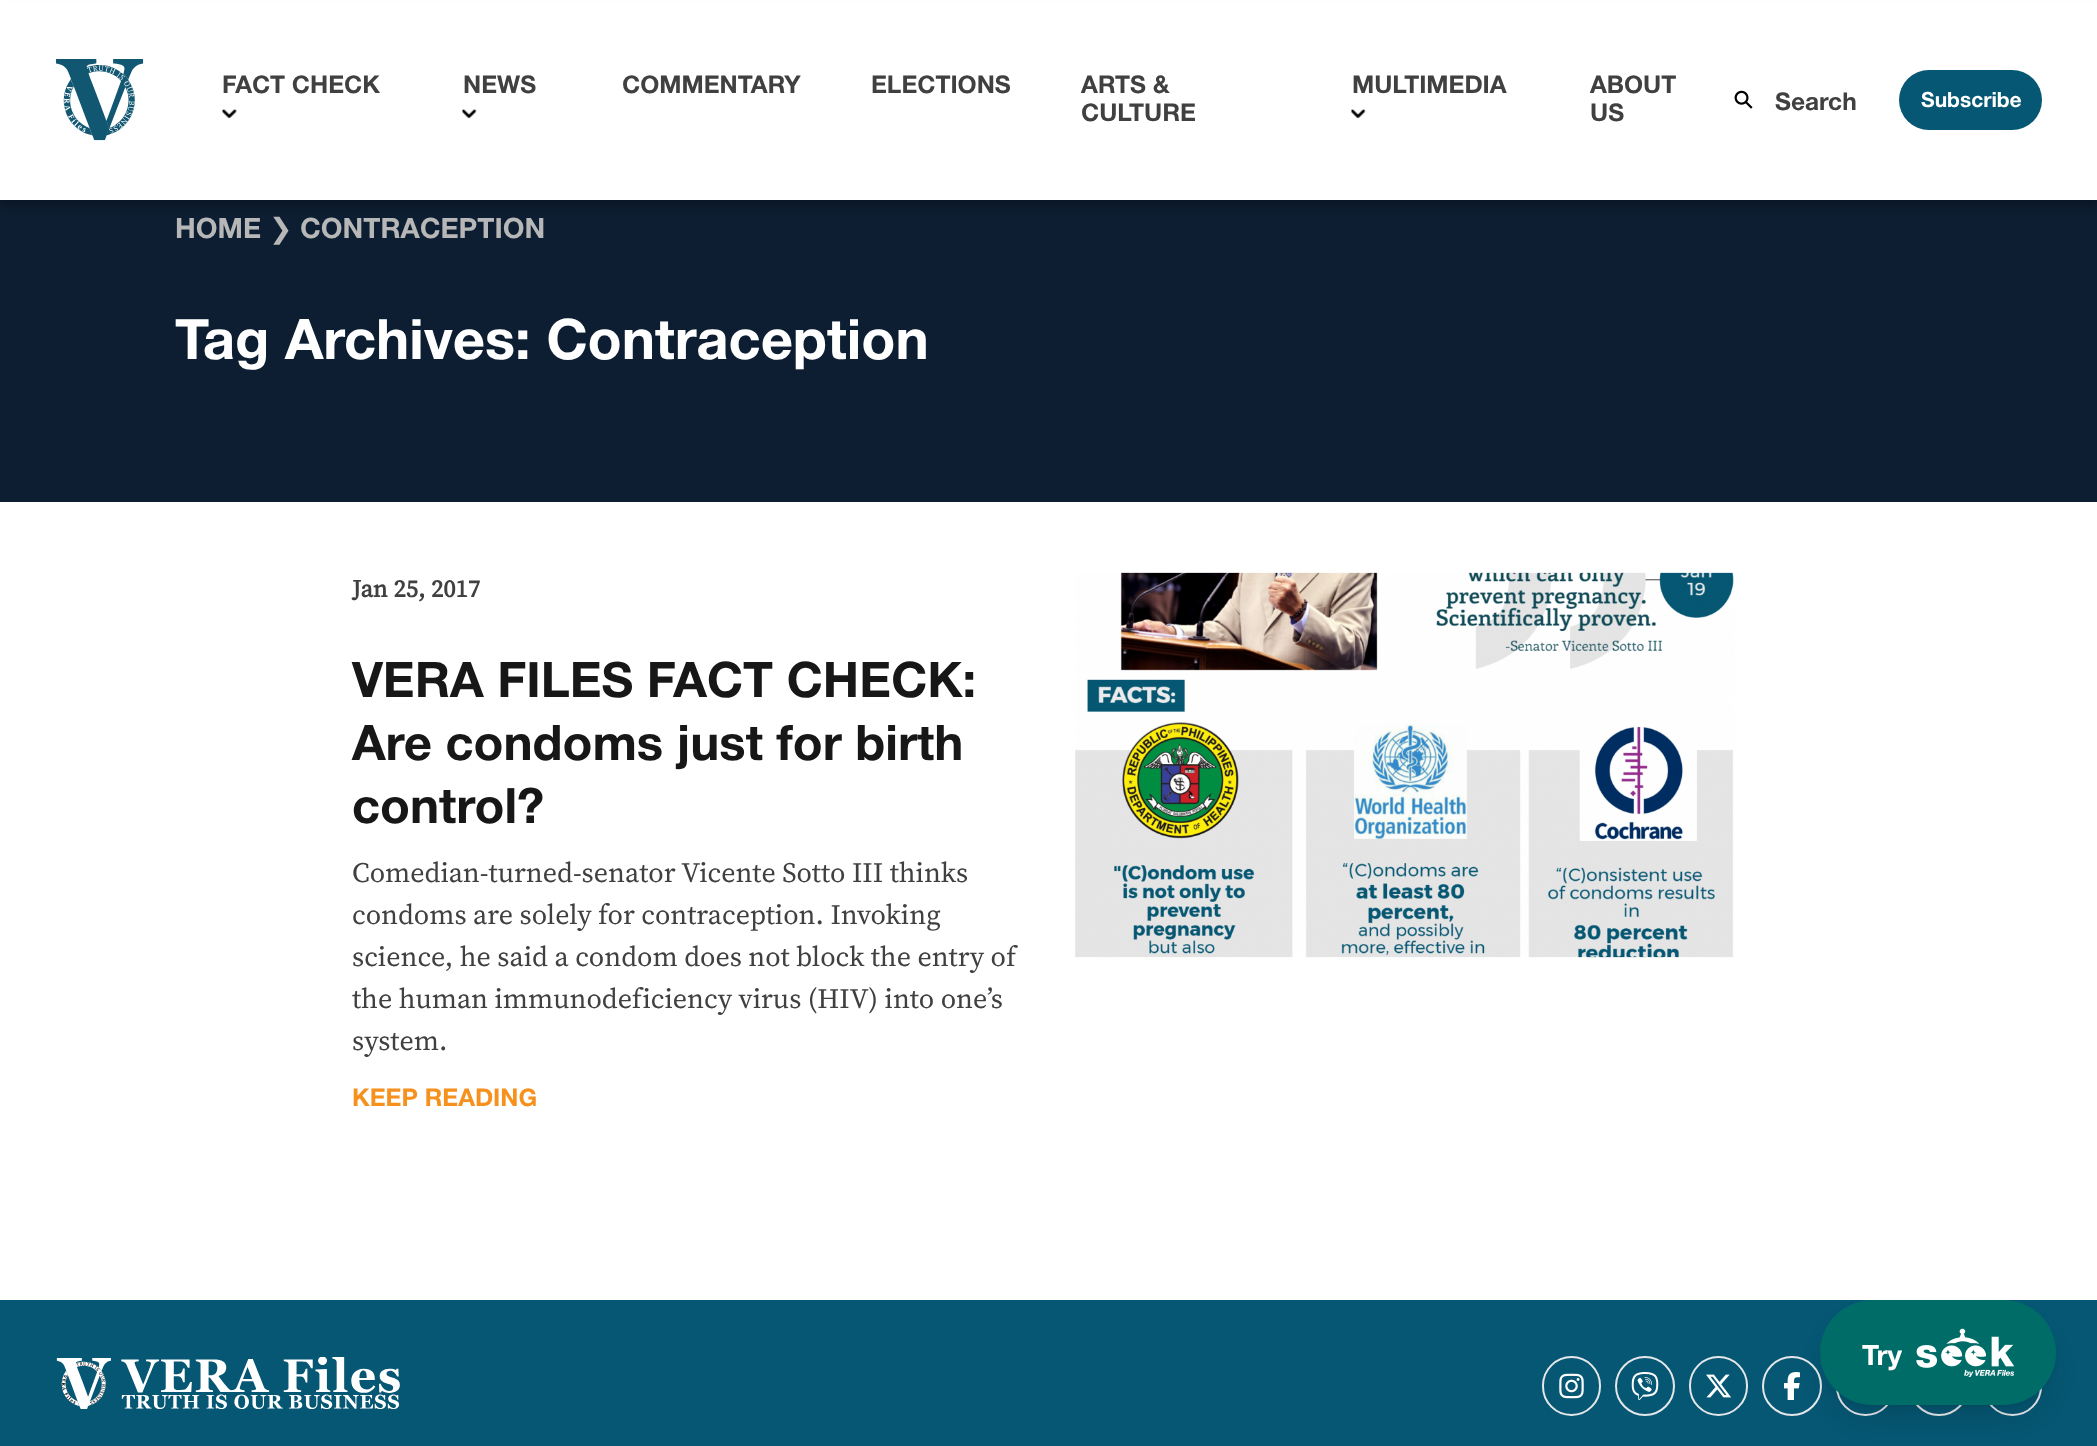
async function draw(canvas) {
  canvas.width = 2097;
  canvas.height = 1446;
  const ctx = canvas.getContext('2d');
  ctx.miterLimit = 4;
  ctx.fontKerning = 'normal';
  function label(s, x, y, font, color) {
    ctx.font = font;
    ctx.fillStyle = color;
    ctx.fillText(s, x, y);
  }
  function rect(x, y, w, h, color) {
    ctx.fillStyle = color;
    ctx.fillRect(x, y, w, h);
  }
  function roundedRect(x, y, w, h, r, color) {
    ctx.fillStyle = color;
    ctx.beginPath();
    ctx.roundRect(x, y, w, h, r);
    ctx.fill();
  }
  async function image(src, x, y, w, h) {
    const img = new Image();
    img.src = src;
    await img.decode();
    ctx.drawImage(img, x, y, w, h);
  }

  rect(0, 0, 2097, 1446, '#fff');
  rect(0, 200, 2097, 302, '#0e1e32');
  ctx.fillStyle = '#00000040';
  ctx.filter = 'blur(3.5px)';
  ctx.beginPath();
  ctx.rect(0, 7, 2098, 200);
  ctx.fill();
  ctx.filter = 'none';
  rect(0, 1, 2097, 199, '#fff');
  await image('assets/img1.png', 56, 59, 88, 82);
  label('FACT CHECK', 222, 93, 'bold 24.5px Helvetica Neue', '#404040');
  await image('assets/img2.png', 222, 109, 15, 10);
  label('NEWS', 463, 93, 'bold 24.5px Helvetica Neue', '#404040');
  await image('assets/img3.png', 462, 109, 15, 10);
  label('COMMENTARY', 622, 93, 'bold 24.5px Helvetica Neue', '#404040');
  label('ELECTIONS', 871, 93, 'bold 24.5px Helvetica Neue', '#404040');
  label('ARTS &', 1081, 93, 'bold 24.5px Helvetica Neue', '#404040');
  label('CULTURE', 1081, 121, 'bold 24.5px Helvetica Neue', '#404040');
  label('MULTIMEDIA', 1352, 93, 'bold 24.5px Helvetica Neue', '#404040');
  await image('assets/img3.png', 1351, 109, 15, 10);
  label('ABOUT', 1590, 93, 'bold 24.5px Helvetica Neue', '#404040');
  label('US', 1590, 121, 'bold 24.5px Helvetica Neue', '#404040');
  await image('assets/img4.png', 1734, 90, 19, 19);
  label('Search', 1775, 110, 'bold 24.5px Helvetica Neue', '#404040');
  roundedRect(1899, 70, 143, 60, 30, '#065773');
  label('Subscribe', 1921, 107, 'bold 21px Helvetica Neue', '#fff');
  label('HOME', 175, 238, 'bold 28px Helvetica Neue', '#b7b7b7');
  label('❯', 269, 238, '28px DejaVu Sans', '#b7b7b7');
  label('CONTRACEPTION', 300, 238, 'bold 28px Helvetica Neue', '#b7b7b7');
  label('Tag Archives: Contraception', 175, 359, 'bold 56px Helvetica Neue', '#fff');
  label('Jan 25, 2017', 352, 597, 'bold 24.5px "Source Serif 4"', '#404040');
  label('VERA FILES FACT CHECK:', 352, 697, 'bold 49px Helvetica Neue', '#171717');
  label('Are condoms just for birth', 352, 760, 'bold 49px Helvetica Neue', '#171717');
  label('control?', 352, 823, 'bold 49px Helvetica Neue', '#171717');
  label('Comedian-turned-senator Vicente Sotto III thinks', 352, 882, '28px "Source Serif 4"', '#404040');
  label('condoms are solely for contraception. Invoking', 352, 924, '28px "Source Serif 4"', '#404040');
  label('science, he said a condom does not block the entry of', 352, 966, '28px "Source Serif 4"', '#404040');
  label('the human immunodeficiency virus (HIV) into one’s', 352, 1008, '28px "Source Serif 4"', '#404040');
  label('system.', 352, 1050, '28px "Source Serif 4"', '#404040');
  label('KEEP READING', 352, 1106, 'bold 24.5px Helvetica Neue', '#f6911d');
  await image('assets/img5.png', 1075, 572, 659, 386);
  rect(0, 1300, 2097, 146, '#065773');
  await image('assets/img6.png', 56, 1357, 344, 52);
  ctx.beginPath();
  ctx.roundRect(1543, 1357, 57, 58, 28.5);
  ctx.strokeStyle = '#e5e7eb';
  ctx.lineWidth = 2;
  ctx.stroke();
  await image('assets/img7.png', 1559, 1373, 25, 26);
  ctx.beginPath();
  ctx.arc(1645, 1386, 29, 0, 2 * Math.PI);
  ctx.stroke();
  await image('assets/img8.png', 1631, 1372, 28, 28);
  ctx.beginPath();
  ctx.roundRect(1690, 1357, 57, 58, 28.5);
  ctx.stroke();
  await image('assets/img9.png', 1706, 1374, 25, 24);
  ctx.beginPath();
  ctx.arc(1792, 1386, 29, 0, 2 * Math.PI);
  ctx.stroke();
  await image('assets/img10.png', 1784, 1372, 16, 28);
  ctx.beginPath();
  ctx.roundRect(1837, 1357, 57, 58, 28.5);
  ctx.stroke();
  ctx.beginPath();
  ctx.arc(1939, 1386, 29, 0, 2 * Math.PI);
  ctx.stroke();
  ctx.beginPath();
  ctx.roundRect(1984, 1357, 57, 58, 28.5);
  ctx.stroke();
  ctx.fillStyle = '#0000001a';
  ctx.filter = 'blur(5px)';
  ctx.beginPath();
  ctx.roundRect(1827, 1314, 222, 91, 45.5);
  ctx.fill();
  ctx.filter = 'none';
  ctx.filter = 'blur(13px)';
  ctx.beginPath();
  ctx.roundRect(1825, 1323, 226, 95, 47.5);
  ctx.fill();
  ctx.filter = 'none';
  roundedRect(1820, 1300, 236, 105, 52.5, '#006c68');
  label('Try', 1862, 1365, 'bold 28px Helvetica Neue', '#fff');
  await image('assets/img11.png', 1916, 1328, 98, 49);
}

draw(document.querySelector('canvas'));
